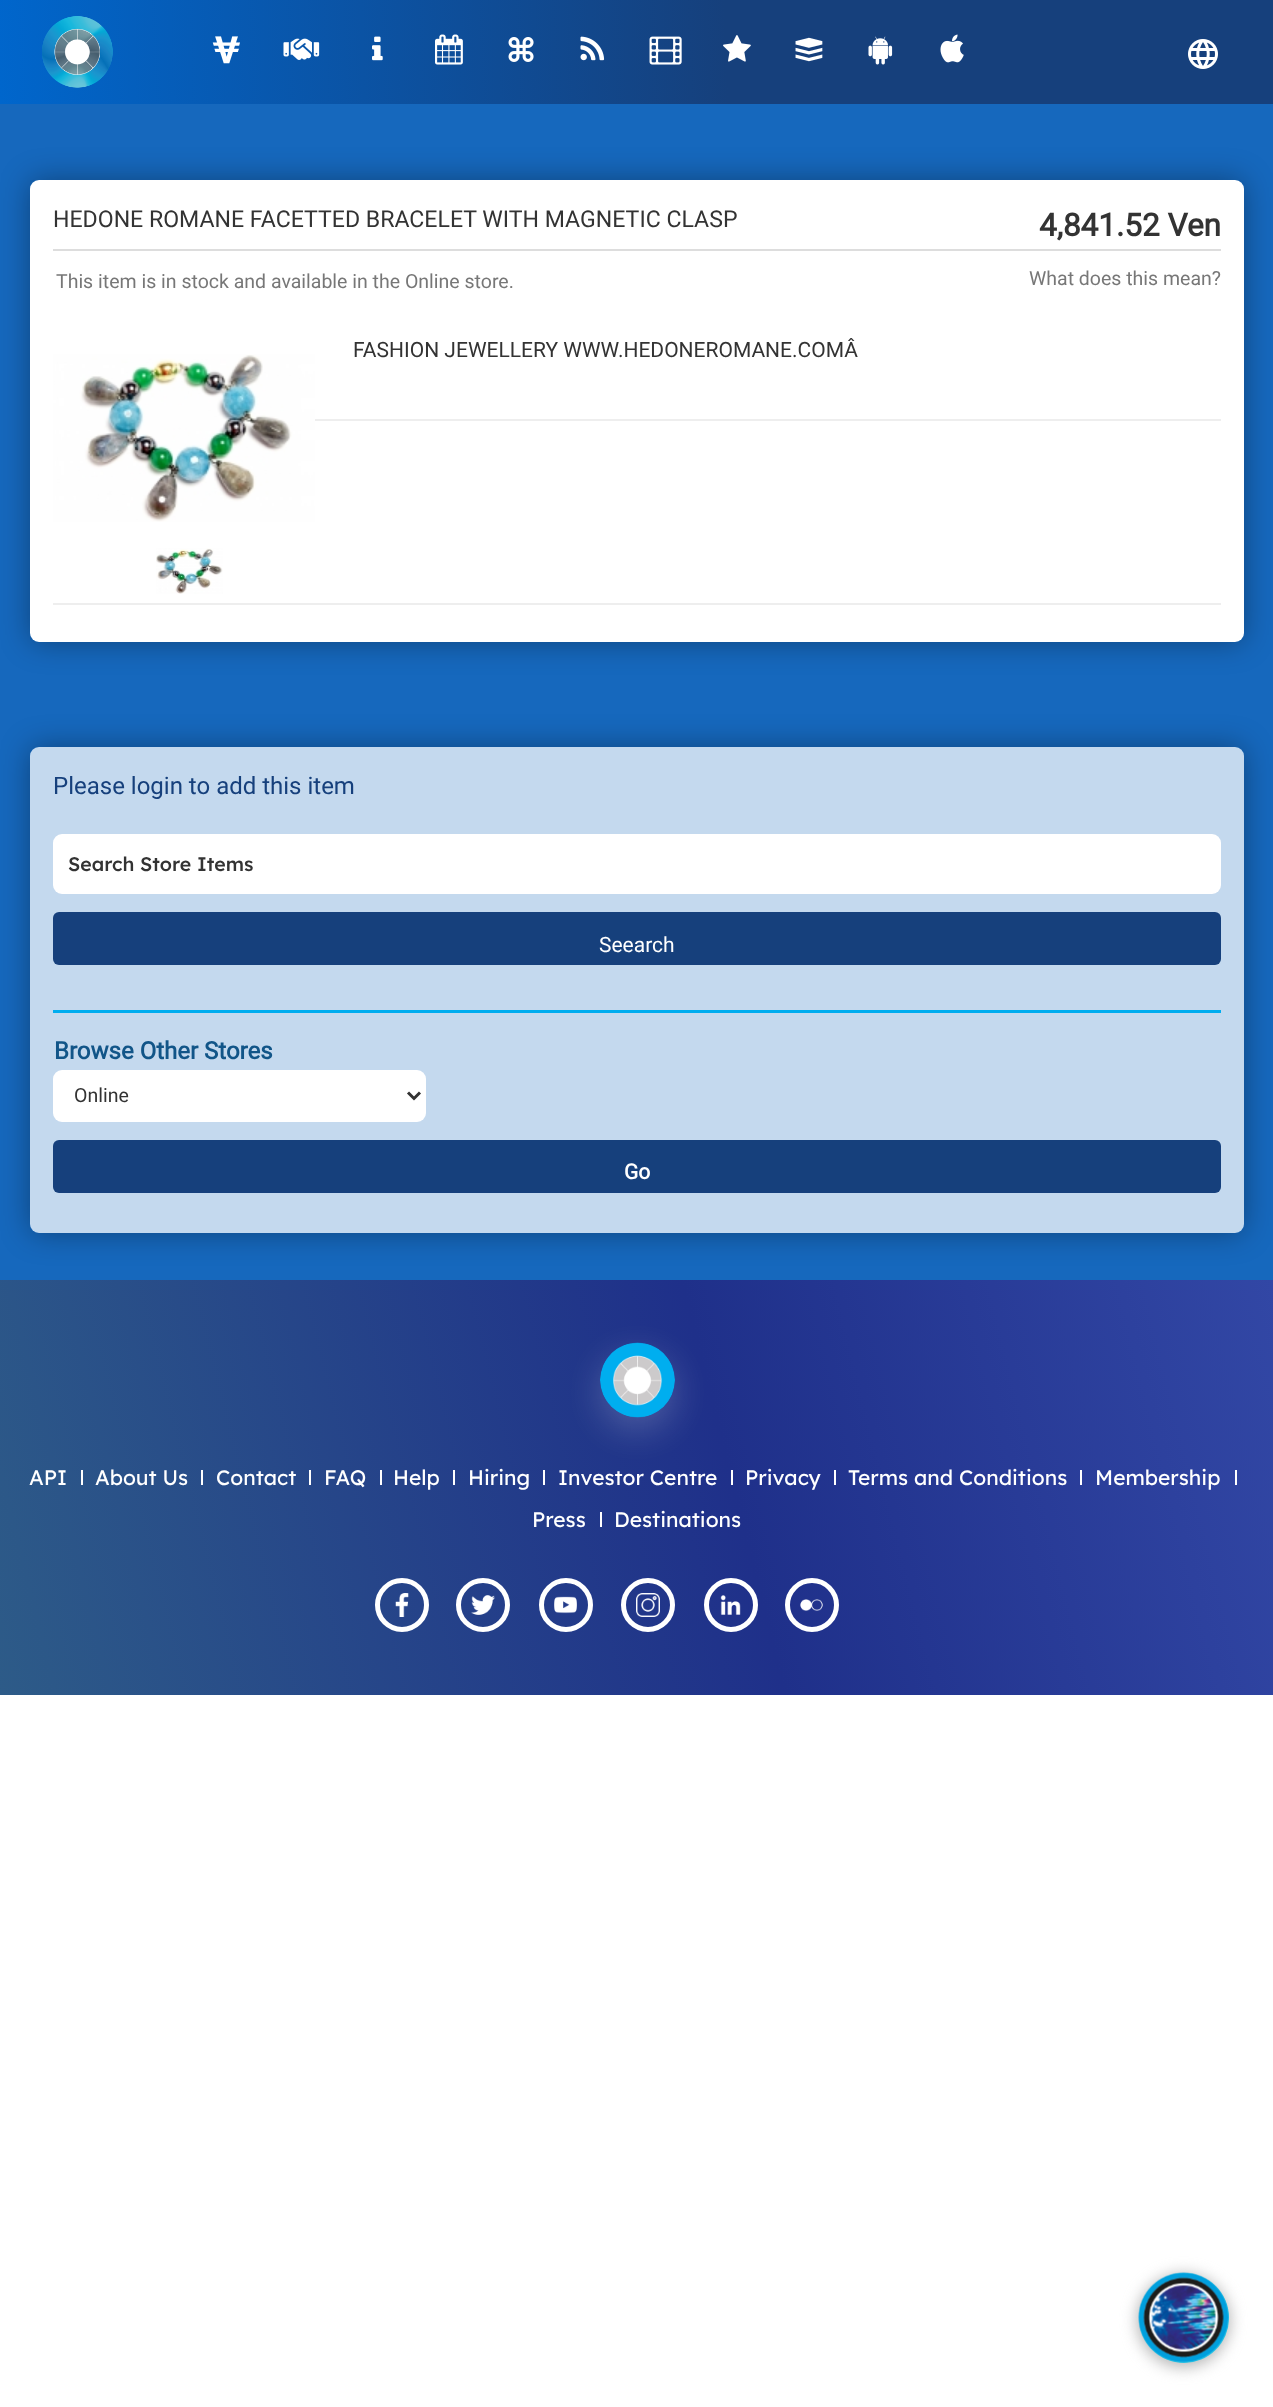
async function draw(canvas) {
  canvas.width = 1273;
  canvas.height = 2407;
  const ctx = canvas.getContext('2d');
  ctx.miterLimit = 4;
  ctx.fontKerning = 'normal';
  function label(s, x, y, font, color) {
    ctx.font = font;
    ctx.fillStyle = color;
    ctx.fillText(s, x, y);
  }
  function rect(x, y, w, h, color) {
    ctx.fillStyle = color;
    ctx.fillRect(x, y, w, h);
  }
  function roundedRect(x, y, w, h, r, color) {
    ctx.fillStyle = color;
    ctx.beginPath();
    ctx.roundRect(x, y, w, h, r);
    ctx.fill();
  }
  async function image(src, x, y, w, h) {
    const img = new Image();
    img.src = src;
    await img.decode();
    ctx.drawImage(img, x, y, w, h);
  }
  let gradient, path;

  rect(0, 0, 1273, 2407, '#fff');
  gradient = ctx.createLinearGradient(-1, 74, 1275, 29);
  gradient.addColorStop(0, '#06c');
  gradient.addColorStop(0.57, '#16407c');
  gradient.addColorStop(1, '#16407c');
  ctx.fillStyle = gradient;
  ctx.fillRect(0, 0, 1273, 104);
  await image('assets/img1.png', 42, 16, 71, 72);
  await image('assets/img2.png', 212, 36, 28, 28);
  await image('assets/img3.png', 283, 38, 37, 22);
  await image('assets/img4.png', 372, 36, 11, 25);
  await image('assets/img5.png', 435, 34, 28, 31);
  await image('assets/img6.png', 508, 37, 26, 25);
  await image('assets/img7.png', 580, 36, 25, 25);
  await image('assets/img8.png', 649, 36, 33, 29);
  await image('assets/img9.png', 723, 35, 28, 27);
  await image('assets/img10.png', 795, 37, 28, 25);
  await image('assets/img11.png', 868, 36, 25, 29);
  await image('assets/img12.png', 940, 34, 24, 29);
  await image('assets/img13.png', 1188, 39, 30, 30);
  rect(0, 104, 1273, 1176, '#1668bd');
  ctx.fillStyle = '#00000059';
  ctx.filter = 'blur(15px)';
  ctx.beginPath();
  ctx.roundRect(30, 180, 1214, 462, 9);
  ctx.fill();
  ctx.filter = 'none';
  roundedRect(30, 180, 1214, 462, 9, '#fff');
  rect(53, 249, 1168, 2, '#ddd');
  label('HEDONE ROMANE FACETTED BRACELET WITH MAGNETIC CLASP', 53, 227, '23.1px Roboto', '#333');
  label('4,841.52 Ven', 1039, 236, 'bold 31.5px Roboto', '#333');
  label('This item is in stock and available in the Online store.', 56, 288, '19.5px Roboto', '#777');
  label('What does this mean?', 1029, 285, '19.5px Roboto', '#777');
  rect(315, 419, 906, 2, '#eee');
  label('FASHION JEWELLERY WWW.HEDONEROMANE.COMÂ', 353, 357, '21px Roboto', '#333');
  await image('assets/img14.png', 53, 354, 262, 168);
  await image('assets/img15.png', 156, 548, 67, 46);
  rect(53, 603, 1168, 2, '#eee');
  ctx.save();
  path = new Path2D('M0 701H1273V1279H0ZM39 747H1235C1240 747 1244 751 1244 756V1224C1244 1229 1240 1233 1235 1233H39C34 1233 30 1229 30 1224V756C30 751 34 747 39 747Z');
  ctx.clip(path, 'evenodd');
  ctx.fillStyle = '#00000059';
  ctx.filter = 'blur(15px)';
  ctx.beginPath();
  ctx.roundRect(30, 747, 1214, 486, 9);
  ctx.fill();
  ctx.filter = 'none';
  ctx.restore();
  roundedRect(30, 747, 1214, 486, 9, '#ffffffbf');
  label('Please login to add this item', 53, 794, '24px Roboto', '#16407c');
  roundedRect(53, 834, 1168, 60, 9, '#fff');
  label('Search Store Items', 68, 871, '500 19.5px Lexend', '#333');
  roundedRect(53, 912, 1168, 53, 6, '#16407c');
  label('Seearch', 599, 952, '21px Roboto', '#fff');
  rect(53, 1010, 1168, 3, '#00adef');
  label('Browse Other Stores', 54, 1059, 'bold 24px Roboto', '#158');
  roundedRect(53, 1070, 373, 52, 9, '#fff');
  path = new Path2D('M408 1092.5L414 1098.5L420 1092.5');
  ctx.strokeStyle = '#333';
  ctx.lineWidth = 3;
  ctx.stroke(path);
  label('Online', 74, 1102, '19.5px Roboto', '#333');
  roundedRect(53, 1140, 1168, 53, 6, '#16407c');
  label('Go', 624, 1179, 'bold 21px Roboto', '#fff');
  gradient = ctx.createLinearGradient(-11, 1649, 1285, 1326);
  gradient.addColorStop(0, '#2d5b88');
  gradient.addColorStop(0.57, '#1f308a');
  gradient.addColorStop(1, '#3247a5');
  ctx.fillStyle = gradient;
  ctx.fillRect(0, 1280, 1273, 415);
  ctx.fillStyle = '#ffffff33';
  ctx.filter = 'blur(18px)';
  ctx.beginPath();
  ctx.roundRect(600, 1355, 75, 75, 37.5);
  ctx.fill();
  ctx.filter = 'none';
  await image('assets/img16.png', 600, 1342, 75, 76);
  label('API', 29, 1485, '21px Lexend', '#fff');
  rect(81, 1470, 2, 15, '#fff');
  label('About Us', 95, 1485, '21px Lexend', '#fff');
  rect(201, 1470, 2, 15, '#fff');
  label('Contact', 216, 1485, '21px Lexend', '#fff');
  rect(309, 1470, 2, 15, '#fff');
  label('FAQ', 324, 1485, '21px Lexend', '#fff');
  rect(380, 1470, 2, 15, '#fff');
  label('Help', 393, 1485, '21px Lexend', '#fff');
  rect(453, 1470, 2, 15, '#fff');
  label('Hiring', 468, 1485, '21px Lexend', '#fff');
  rect(543, 1470, 2, 15, '#fff');
  label('Investor Centre', 558, 1485, '21px Lexend', '#fff');
  rect(731, 1470, 2, 15, '#fff');
  label('Privacy', 745, 1485, '21px Lexend', '#fff');
  rect(834, 1470, 2, 15, '#fff');
  label('Terms and Conditions', 848, 1485, '21px Lexend', '#fff');
  rect(1080, 1470, 2, 15, '#fff');
  label('Membership', 1095, 1485, '21px Lexend', '#fff');
  rect(1235, 1470, 2, 15, '#fff');
  label('Press', 532, 1527, '21px Lexend', '#fff');
  rect(600, 1512, 2, 15, '#fff');
  label('Destinations', 614, 1527, '21px Lexend', '#fff');
  ctx.beginPath();
  ctx.arc(402, 1605, 24.5, 0, 2 * Math.PI);
  ctx.strokeStyle = '#fff';
  ctx.lineWidth = 5;
  ctx.stroke();
  await image('assets/img17.png', 395, 1593, 14, 24);
  ctx.beginPath();
  ctx.arc(483, 1605, 24.5, 0, 2 * Math.PI);
  ctx.stroke();
  await image('assets/img18.png', 471, 1595, 24, 20);
  ctx.beginPath();
  ctx.arc(566, 1605, 24.5, 0, 2 * Math.PI);
  ctx.stroke();
  await image('assets/img19.png', 554, 1596, 23, 18);
  ctx.beginPath();
  ctx.arc(648, 1605, 24.5, 0, 2 * Math.PI);
  ctx.stroke();
  await image('assets/img20.png', 636, 1593, 24, 24);
  ctx.beginPath();
  ctx.arc(731, 1605, 24.5, 0, 2 * Math.PI);
  ctx.stroke();
  await image('assets/img21.png', 720, 1595, 21, 20);
  ctx.beginPath();
  ctx.arc(812, 1605, 24.5, 0, 2 * Math.PI);
  ctx.stroke();
  await image('assets/img22.png', 800, 1599, 23, 12);
  ctx.fillStyle = '#b5b5b5';
  ctx.filter = 'blur(7.5px)';
  ctx.beginPath();
  ctx.roundRect(1137, 2274, 93, 93, 46.5);
  ctx.fill();
  ctx.filter = 'none';
  ctx.fillStyle = '#35cce6';
  ctx.beginPath();
  ctx.arc(1184, 2318, 45, 0, 2 * Math.PI);
  ctx.fill();
  await image('assets/img23.png', 1138, 2272, 91, 91);
}

draw(document.querySelector('canvas'));
